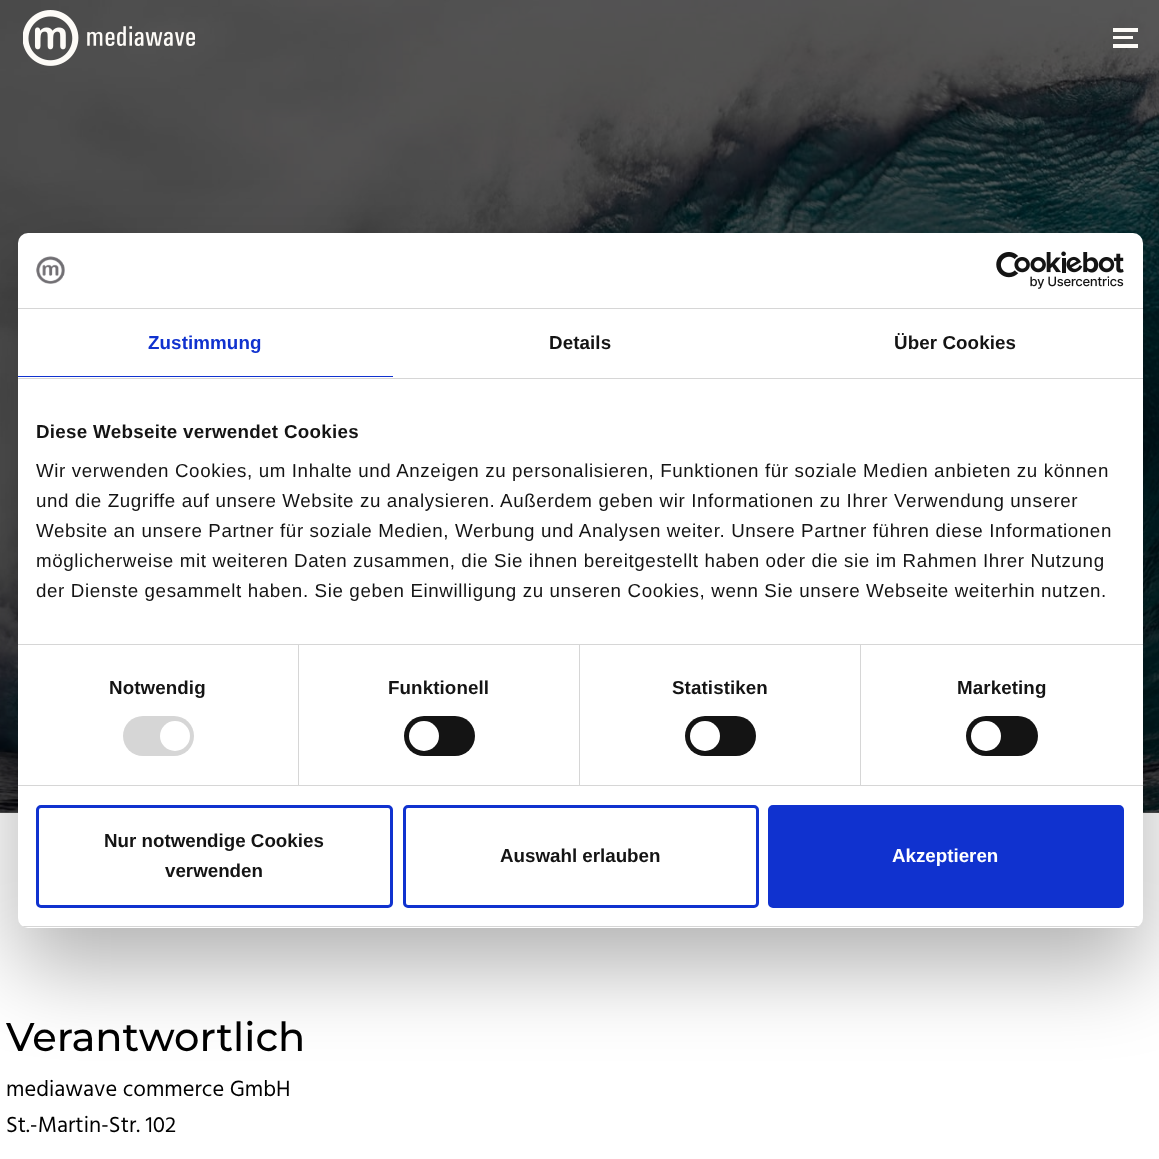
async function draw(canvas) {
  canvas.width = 1159;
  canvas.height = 1159;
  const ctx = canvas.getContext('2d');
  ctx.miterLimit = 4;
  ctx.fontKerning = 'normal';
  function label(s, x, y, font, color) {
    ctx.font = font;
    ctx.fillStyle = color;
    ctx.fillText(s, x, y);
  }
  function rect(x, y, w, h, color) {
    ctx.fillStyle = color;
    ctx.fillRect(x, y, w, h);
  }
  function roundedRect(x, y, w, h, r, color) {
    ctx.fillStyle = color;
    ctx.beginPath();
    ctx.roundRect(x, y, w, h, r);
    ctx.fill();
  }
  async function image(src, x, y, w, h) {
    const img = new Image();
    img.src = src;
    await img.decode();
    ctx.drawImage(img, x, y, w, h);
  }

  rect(0, 0, 1159, 1159, '#fff');
  rect(0, 812, 1159, 1, '#545454');
  await image('assets/img1.png', 0, 0, 1159, 813);
  await image('assets/img2.png', 23, 10, 172, 56);
  rect(1113, 28, 25, 4, '#fdfbf7');
  rect(1113, 36, 20, 3, '#fdfbf7');
  rect(1113, 44, 25, 4, '#fdfbf7');
  ctx.fillStyle = '#0000004d';
  ctx.filter = 'blur(42.5px)';
  ctx.beginPath();
  ctx.roundRect(18, 273, 1125, 695, 10);
  ctx.fill();
  ctx.filter = 'none';
  roundedRect(18, 233, 1125, 695, 10, '#fff');
  rect(18, 308, 1125, 1, '#d6d6d6');
  await image('assets/img3.png', 36, 256, 29, 28);
  await image('assets/img4.png', 996, 251, 128, 38);
  rect(18, 378, 1125, 1, '#d6d6d6');
  rect(18, 376, 375, 1, '#1032cf');
  ctx.letterSpacing = '0.1px';
  label('Zustimmung', 148, 349, 'bold 18.75px Liberation Sans', '#1032cf');
  label('Details', 549, 349, 'bold 18.75px Liberation Sans', '#141414');
  label('Über Cookies', 894, 349, 'bold 18.75px Liberation Sans', '#141414');
  rect(18, 644, 1125, 1, '#d6d6d6');
  ctx.letterSpacing = '0.3px';
  label('Diese Webseite verwendet Cookies', 36, 438, 'bold 18.75px Liberation Sans', '#141414');
  ctx.letterSpacing = '0.62px';
  label('Wir verwenden Cookies, um Inhalte und Anzeigen zu personalisieren, Funktionen für soziale Medien anbieten zu können', 36, 477, '18.75px Liberation Sans', '#141414');
  label('und die Zugriffe auf unsere Website zu analysieren. Außerdem geben wir Informationen zu Ihrer Verwendung unserer', 36, 507, '18.75px Liberation Sans', '#141414');
  label('Website an unsere Partner für soziale Medien, Werbung und Analysen weiter. Unsere Partner führen diese Informationen', 36, 537, '18.75px Liberation Sans', '#141414');
  label('möglicherweise mit weiteren Daten zusammen, die Sie ihnen bereitgestellt haben oder die sie im Rahmen Ihrer Nutzung', 36, 567, '18.75px Liberation Sans', '#141414');
  label('der Dienste gesammelt haben. Sie geben Einwilligung zu unseren Cookies, wenn Sie unsere Webseite weiterhin nutzen.', 36, 597, '18.75px Liberation Sans', '#141414');
  rect(18, 785, 1125, 1, '#d6d6d6');
  rect(298, 645, 1, 140, '#d6d6d6');
  ctx.letterSpacing = '0.1px';
  label('Notwendig', 109, 694, 'bold 18.75px Liberation Sans', '#141414');
  roundedRect(123, 716, 71, 40, 20, '#d6d6d6');
  ctx.fillStyle = '#fff';
  ctx.beginPath();
  ctx.arc(175, 736, 15, 0, 2 * Math.PI);
  ctx.fill();
  rect(579, 645, 1, 140, '#d6d6d6');
  label('Funktionell', 388, 694, 'bold 18.75px Liberation Sans', '#141414');
  roundedRect(404, 716, 71, 40, 20, '#141414');
  ctx.fillStyle = '#fff';
  ctx.beginPath();
  ctx.arc(424, 736, 15, 0, 2 * Math.PI);
  ctx.fill();
  rect(860, 645, 1, 140, '#d6d6d6');
  label('Statistiken', 672, 694, 'bold 18.75px Liberation Sans', '#141414');
  roundedRect(685, 716, 71, 40, 20, '#141414');
  ctx.fillStyle = '#fff';
  ctx.beginPath();
  ctx.arc(705, 736, 15, 0, 2 * Math.PI);
  ctx.fill();
  label('Marketing', 957, 694, 'bold 18.75px Liberation Sans', '#141414');
  roundedRect(966, 716, 72, 40, 20, '#141414');
  ctx.fillStyle = '#fff';
  ctx.beginPath();
  ctx.arc(986, 736, 15, 0, 2 * Math.PI);
  ctx.fill();
  ctx.save();
  ctx.beginPath();
  ctx.roundRect(18, 233, 1125, 695, 10);
  ctx.clip();
  rect(18, 926, 1125, 1, '#d6d6d6');
  ctx.restore();
  ctx.beginPath();
  ctx.roundRect(37.5, 806.5, 354, 100, 3.5);
  ctx.strokeStyle = '#1032cf';
  ctx.lineWidth = 3;
  ctx.stroke();
  ctx.letterSpacing = '0px';
  label('Nur notwendige Cookies', 104, 847, 'bold 18.75px Liberation Sans', '#141414');
  label('verwenden', 165, 877, 'bold 18.75px Liberation Sans', '#141414');
  ctx.beginPath();
  ctx.roundRect(404.5, 806.5, 353, 100, 3.5);
  ctx.stroke();
  label('Auswahl erlauben', 500, 862, 'bold 18.75px Liberation Sans', '#141414');
  ctx.fillStyle = '#1032cf';
  ctx.beginPath();
  ctx.roundRect(769.5, 806.5, 353, 100, 3.5);
  ctx.fill();
  ctx.stroke();
  label('Akzeptieren', 892, 862, 'bold 18.75px Liberation Sans', '#fff');
  label('Verantwortlich', 6, 1051, '500 40px Montserrat', '#000');
  label('mediawave commerce GmbH', 6, 1096, '22.5px Hind', '#000');
  label('St.-Martin-Str. 102', 6, 1132, '22.5px Hind', '#000');
}

draw(document.querySelector('canvas'));
